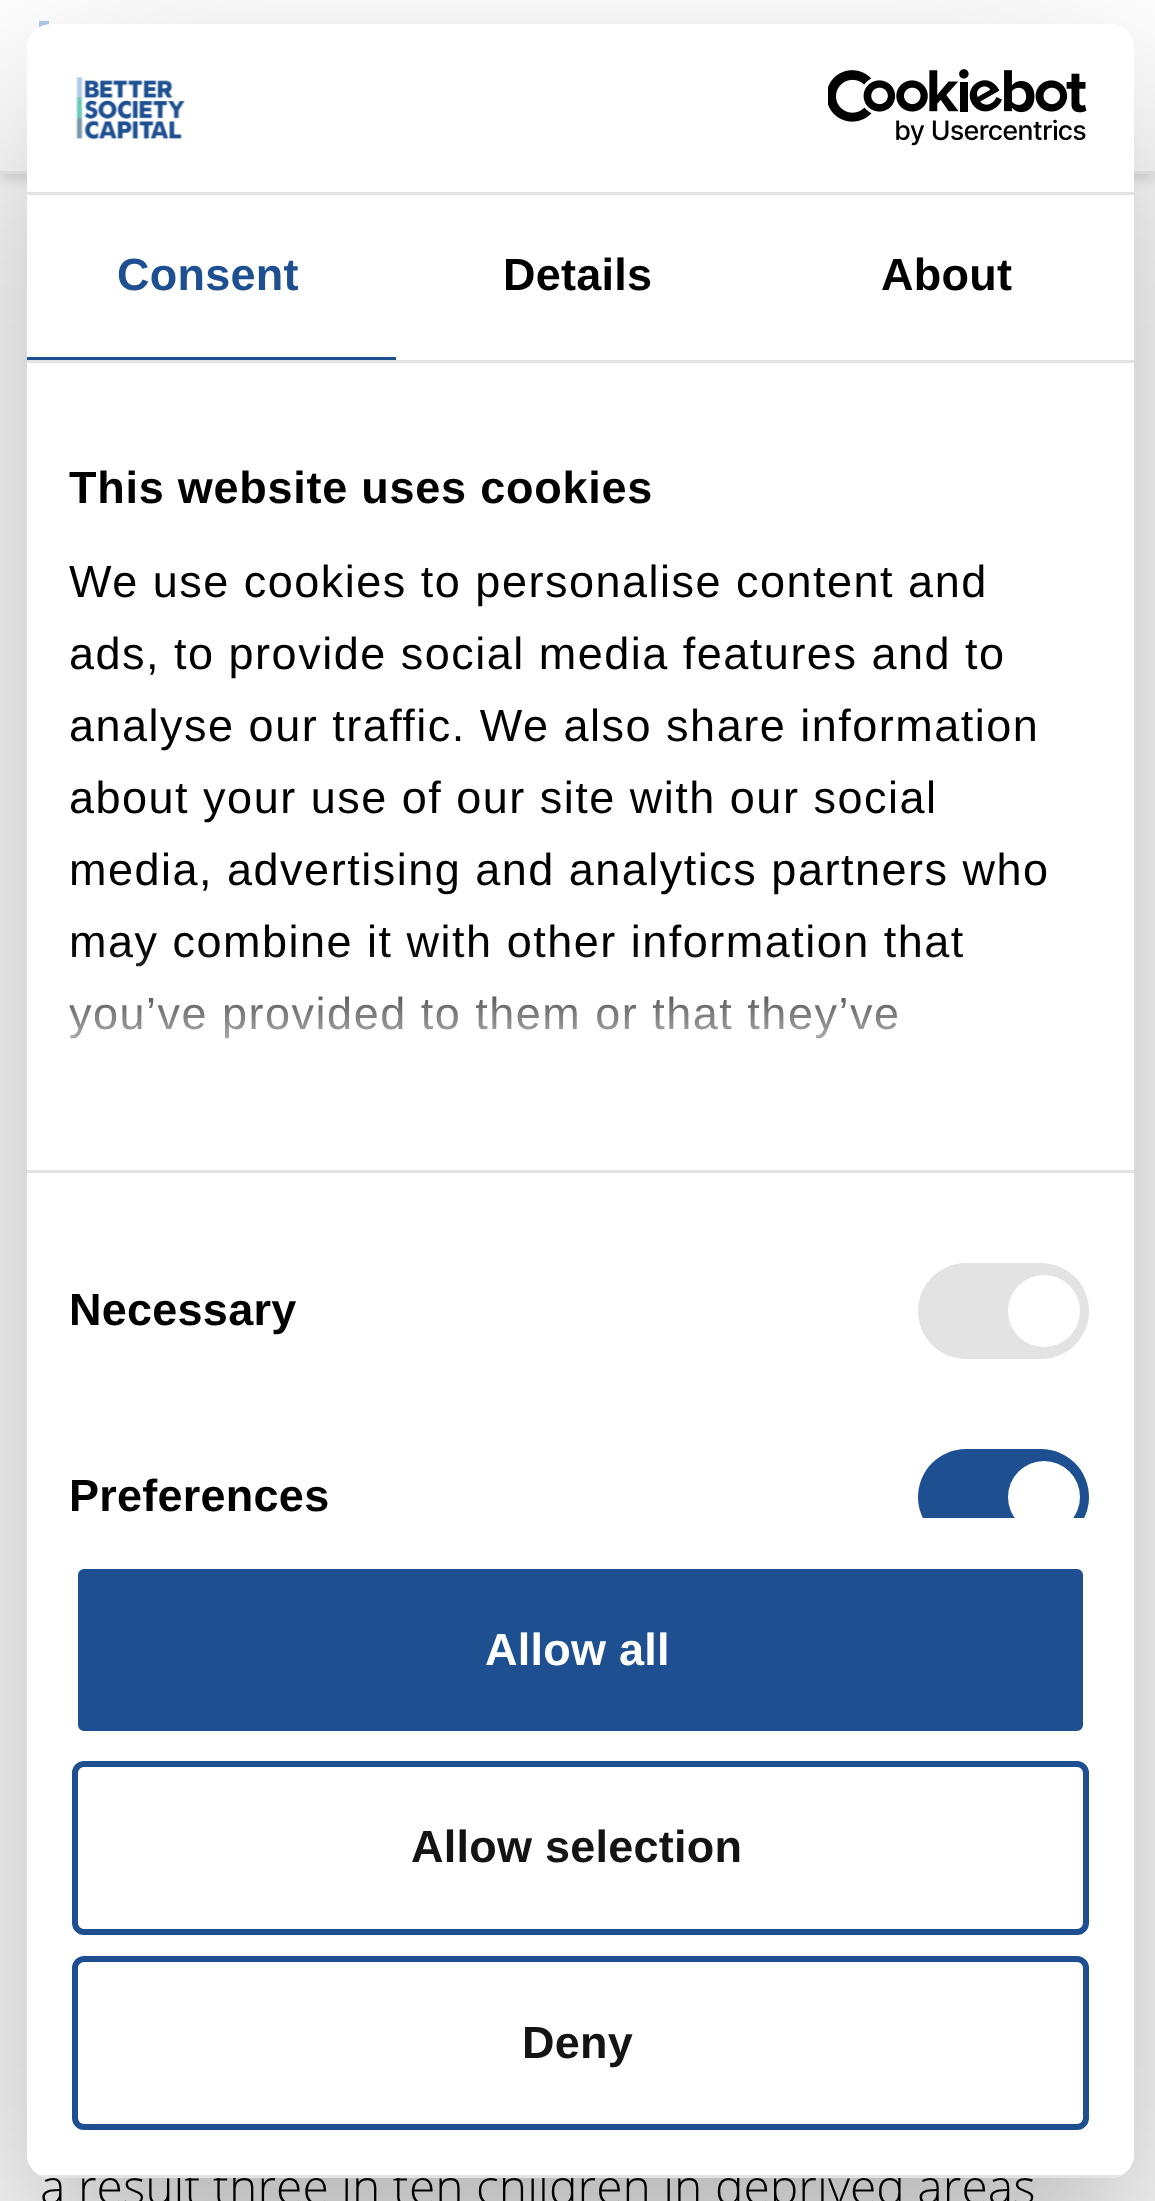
async function draw(canvas) {
  canvas.width = 1155;
  canvas.height = 2201;
  const ctx = canvas.getContext('2d');
  ctx.miterLimit = 4;
  ctx.fontKerning = 'normal';
  function label(s, x, y, font, color) {
    ctx.font = font;
    ctx.fillStyle = color;
    ctx.fillText(s, x, y);
  }
  function rect(x, y, w, h, color) {
    ctx.fillStyle = color;
    ctx.fillRect(x, y, w, h);
  }
  function roundedRect(x, y, w, h, r, color) {
    ctx.fillStyle = color;
    ctx.beginPath();
    ctx.roundRect(x, y, w, h, r);
    ctx.fill();
  }
  async function image(src, x, y, w, h) {
    const img = new Image();
    img.src = src;
    await img.decode();
    ctx.drawImage(img, x, y, w, h);
  }
  let gradient, path;

  rect(0, 0, 1155, 2201, '#fff');
  ctx.fillStyle = '#0000001f';
  ctx.filter = 'blur(6px)';
  ctx.beginPath();
  ctx.rect(0, 6, 1155, 174);
  ctx.fill();
  ctx.filter = 'none';
  rect(0, 0, 1155, 171, '#fff');
  rect(0, 171, 1155, 3, '#f1f1f1');
  await image('assets/img1.png', 39, 21, 10, 7);
  ctx.save();
  path = new Path2D('M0 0H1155V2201H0ZM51 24H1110C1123.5 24 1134 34.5 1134 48V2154C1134 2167.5 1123.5 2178 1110 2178H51C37.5 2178 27 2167.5 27 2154V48C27 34.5 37.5 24 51 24Z');
  ctx.clip(path, 'evenodd');
  ctx.fillStyle = '#0000004d';
  ctx.filter = 'blur(102px)';
  ctx.beginPath();
  ctx.roundRect(27, 120, 1107, 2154, 24);
  ctx.fill();
  ctx.filter = 'none';
  ctx.restore();
  label('a result three in ten children in deprived areas', 40, 2204, '300 48px Open Sans', '#000');
  roundedRect(27, 24, 1107, 2154, 24, '#fff');
  rect(27, 192, 1107, 3, '#e3e3e3');
  await image('assets/img2.png', 75, 77, 111, 63);
  await image('assets/img3.png', 828, 69, 259, 77);
  rect(27, 360, 1107, 3, '#e3e3e3');
  rect(27, 357, 369, 3, '#1d4f91');
  ctx.letterSpacing = '0.25px';
  label('Consent', 117, 290, 'bold 45px Liberation Sans', '#1d4f91');
  label('Details', 503, 290, 'bold 45px Liberation Sans', '#000');
  label('About', 881, 290, 'bold 45px Liberation Sans', '#000');
  rect(27, 1170, 1107, 3, '#e3e3e3');
  ctx.letterSpacing = '0.75px';
  label('This website uses cookies', 69, 503, 'bold 45px Liberation Sans', '#000');
  ctx.letterSpacing = '1.5px';
  label('We use cookies to personalise content and', 69, 597, '45px Liberation Sans', '#000');
  label('ads, to provide social media features and to', 69, 669, '45px Liberation Sans', '#000');
  label('analyse our traffic. We also share information', 69, 741, '45px Liberation Sans', '#000');
  label('about your use of our site with our social', 69, 813, '45px Liberation Sans', '#000');
  label('media, advertising and analytics partners who', 69, 885, '45px Liberation Sans', '#000');
  label('may combine it with other information that', 69, 957, '45px Liberation Sans', '#000');
  label('you’ve provided to them or that they’ve', 69, 1029, '45px Liberation Sans', '#000');
  gradient = ctx.createLinearGradient(560, 1170, 560, 945);
  gradient.addColorStop(0, '#fff');
  gradient.addColorStop(0.5, '#ffffffcc');
  gradient.addColorStop(1, '#ffffff00');
  ctx.fillStyle = gradient;
  ctx.fillRect(69, 948, 894, 91);
  ctx.letterSpacing = '0.25px';
  label('Necessary', 69, 1325, 'bold 45px Liberation Sans', '#000');
  roundedRect(918, 1263, 171, 96, 48, '#e3e3e3');
  ctx.fillStyle = '#fff';
  ctx.beginPath();
  ctx.arc(1044, 1311, 36, 0, 2 * Math.PI);
  ctx.fill();
  label('Preferences', 69, 1511, 'bold 45px Liberation Sans', '#000');
  ctx.save();
  ctx.beginPath();
  ctx.rect(27, 363, 1107, 1155);
  ctx.clip();
  roundedRect(918, 1449, 171, 96, 48, '#1d4f91');
  ctx.fillStyle = '#fff';
  ctx.beginPath();
  ctx.arc(1044, 1497, 36, 0, 2 * Math.PI);
  ctx.fill();
  ctx.restore();
  ctx.save();
  ctx.beginPath();
  ctx.roundRect(27, 24, 1107, 2154, 24);
  ctx.clip();
  rect(39, 2175, 1083, 3, '#e3e3e3');
  ctx.restore();
  ctx.fillStyle = '#1d4f91';
  ctx.beginPath();
  ctx.roundRect(75, 1566, 1011, 168, 9);
  ctx.fill();
  ctx.strokeStyle = '#fff';
  ctx.lineWidth = 6;
  ctx.stroke();
  label('Allow all', 485, 1665, 'bold 45px Liberation Sans', '#fff');
  ctx.beginPath();
  ctx.roundRect(75, 1764, 1011, 168, 9);
  ctx.strokeStyle = '#1d4f91';
  ctx.stroke();
  label('Allow selection', 411, 1862, 'bold 45px Liberation Sans', '#141414');
  ctx.beginPath();
  ctx.roundRect(75, 1959, 1011, 168, 9);
  ctx.stroke();
  label('Deny', 522, 2058, 'bold 45px Liberation Sans', '#141414');
}

draw(document.querySelector('canvas'));
